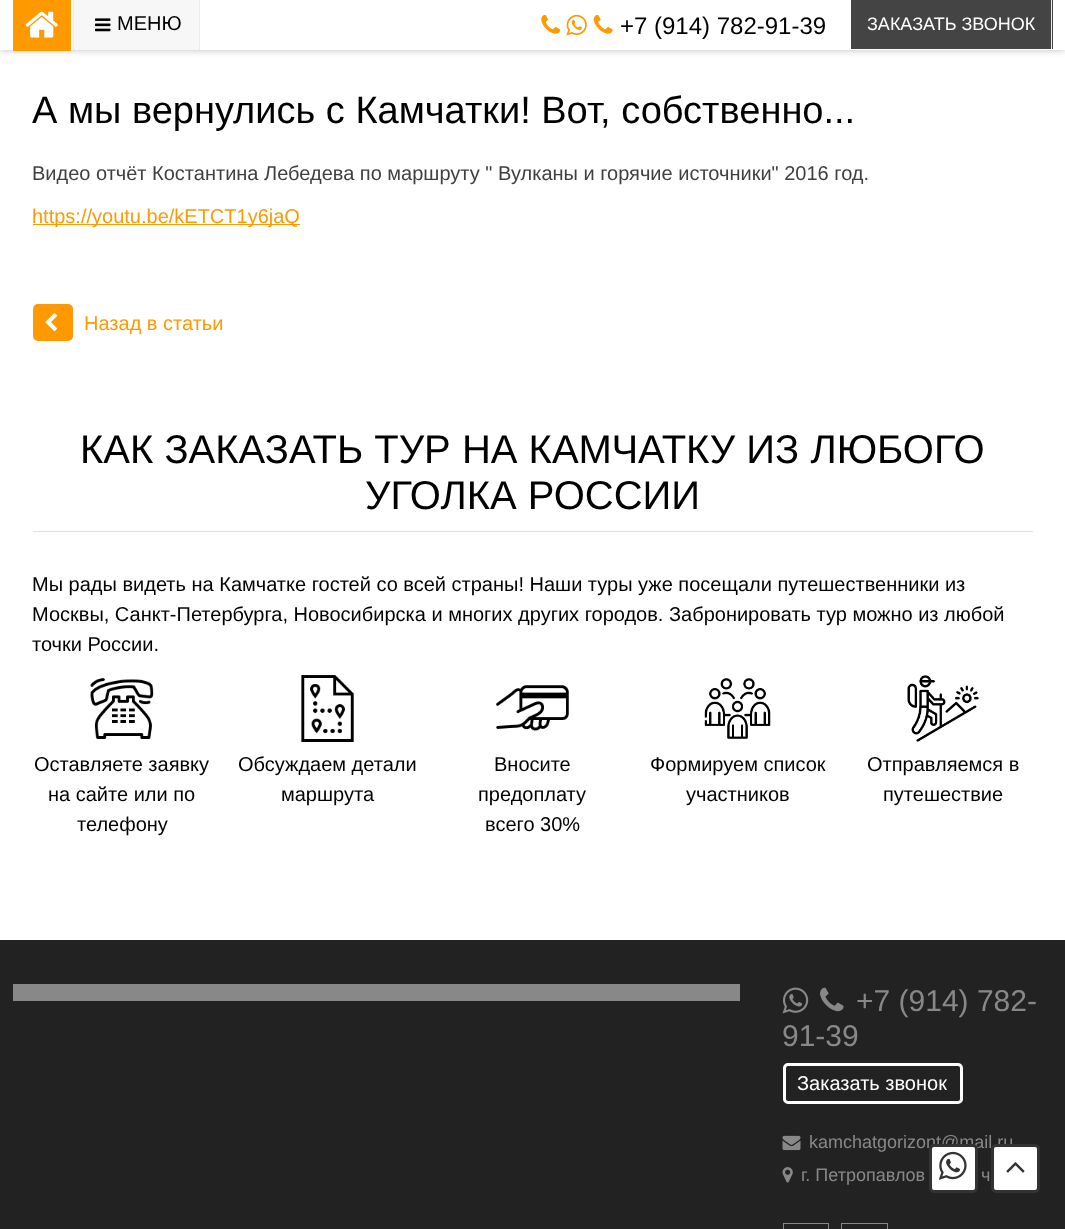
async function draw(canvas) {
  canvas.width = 1065;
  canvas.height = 1229;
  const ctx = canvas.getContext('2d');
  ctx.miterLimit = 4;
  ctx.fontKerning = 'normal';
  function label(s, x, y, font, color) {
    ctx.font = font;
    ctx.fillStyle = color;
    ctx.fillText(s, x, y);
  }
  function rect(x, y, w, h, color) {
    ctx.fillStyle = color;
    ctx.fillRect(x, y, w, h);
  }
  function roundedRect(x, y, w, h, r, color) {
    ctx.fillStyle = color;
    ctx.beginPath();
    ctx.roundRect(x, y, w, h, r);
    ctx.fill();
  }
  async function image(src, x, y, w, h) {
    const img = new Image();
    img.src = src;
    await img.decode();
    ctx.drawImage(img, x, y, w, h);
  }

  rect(0, 0, 1065, 1229, '#fff');
  ctx.fillStyle = '#00000033';
  ctx.filter = 'blur(3px)';
  ctx.beginPath();
  ctx.rect(0, 1, 1065, 50);
  ctx.fill();
  ctx.filter = 'none';
  rect(0, 0, 1065, 50, '#fff');
  rect(13, 0, 58, 51, '#f90');
  await image('assets/img1.png', 25, 11, 33, 27);
  rect(74, 0, 125, 50, '#f7f7f7');
  rect(199, 0, 1, 50, '#ececec');
  rect(73, 0, 1, 50, '#ececec');
  await image('assets/img2.png', 95, 18, 16, 14);
  label('МЕНЮ', 117, 30, '20px Liberation Sans', '#000');
  await image('assets/img3.png', 541, 14, 20, 20);
  await image('assets/img4.png', 566, 14, 21, 22);
  await image('assets/img5.png', 593, 14, 20, 20);
  label('+7 (914) 782-91-39', 620, 34, '24px Liberation Sans', '#000');
  rect(851, 0, 202, 49, '#444');
  rect(1051, 0, 1, 49, '#eee');
  label('ЗАКАЗАТЬ ЗВОНОК', 867, 30, '18px Liberation Sans', '#fff');
  label('А мы вернулись с Камчатки! Вот, собственно...', 32, 123, '38px Liberation Sans', '#000');
  label('Видео отчёт Костантина Лебедева по маршруту " Вулканы и горячие источники" 2016 год.', 32, 180, '20px Liberation Sans', '#404040');
  rect(33, 224, 267, 1, '#f90');
  label('https://youtu.be/kETCT1y6jaQ', 32, 223, '20px Liberation Sans', '#f90');
  roundedRect(33, 304, 40, 37, 5, '#f90');
  await image('assets/img6.png', 45, 313, 12, 19);
  label('Назад в статьи', 84, 330, '20px Liberation Sans', '#f90');
  rect(33, 531, 1000, 1, '#e0e0e0');
  label('КАК ЗАКАЗАТЬ ТУР НА КАМЧАТКУ ИЗ ЛЮБОГО', 80, 463, '40px Liberation Sans', '#000');
  label('УГОЛКА РОССИИ', 365, 509, '40px Liberation Sans', '#000');
  label('Мы рады видеть на Камчатке гостей со всей страны! Наши туры уже посещали путешественники из', 32, 591, '20px Liberation Sans', '#000');
  label('Москвы, Санкт-Петербурга, Новосибирска и многих других городов. Забронировать тур можно из любой', 32, 621, '20px Liberation Sans', '#000');
  label('точки России.', 32, 651, '20px Liberation Sans', '#000');
  await image('assets/img7.png', 90, 678, 64, 61);
  label('Оставляете заявку', 34, 771, '20px Liberation Sans', '#000');
  label('на сайте или по', 48, 801, '20px Liberation Sans', '#000');
  label('телефону', 77, 831, '20px Liberation Sans', '#000');
  await image('assets/img8.png', 301, 675, 53, 67);
  label('Обсуждаем детали', 238, 771, '20px Liberation Sans', '#000');
  label('маршрута', 281, 801, '20px Liberation Sans', '#000');
  await image('assets/img9.png', 496, 685, 73, 46);
  label('Вносите', 494, 771, '20px Liberation Sans', '#000');
  label('предоплату', 478, 801, '20px Liberation Sans', '#000');
  label('всего 30%', 485, 831, '20px Liberation Sans', '#000');
  await image('assets/img10.png', 704, 678, 67, 61);
  label('Формируем список', 650, 771, '20px Liberation Sans', '#000');
  label('участников', 686, 801, '20px Liberation Sans', '#000');
  await image('assets/img11.png', 907, 675, 72, 67);
  label('Отправляемся в', 867, 771, '20px Liberation Sans', '#000');
  label('путешествие', 883, 801, '20px Liberation Sans', '#000');
  rect(0, 940, 1065, 289, '#222');
  rect(13, 984, 727, 17, '#888');
  await image('assets/img12.png', 782, 987, 27, 27);
  await image('assets/img13.png', 820, 987, 24, 25);
  label('+7 (914) 782-', 856, 1011, '30px Liberation Sans', '#888');
  label('91-39', 782, 1046, '30px Liberation Sans', '#888');
  ctx.beginPath();
  ctx.roundRect(784.5, 1064.5, 177, 38, 3.5);
  ctx.strokeStyle = '#fff';
  ctx.lineWidth = 3;
  ctx.stroke();
  label('Заказать звонок', 797, 1090, '20px Liberation Sans', '#fff');
  await image('assets/img14.png', 782, 1135, 19, 16);
  label('kamchatgorizont@mail.ru', 809, 1148, '18px Liberation Sans', '#888');
  await image('assets/img15.png', 782, 1167, 11, 16);
  label('г. Петропавлов', 801, 1181, '18px Liberation Sans', '#888');
  label('ч', 981, 1181, '18px Liberation Sans', '#888');
  ctx.strokeStyle = '#888';
  ctx.lineWidth = 1;
  ctx.strokeRect(783.5, 1223.5, 45, 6);
  ctx.strokeRect(841.5, 1223.5, 46, 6);
  ctx.fillStyle = '#fff';
  ctx.beginPath();
  ctx.roundRect(930.5, 1145.5, 46, 46, 3.5);
  ctx.fill();
  ctx.strokeStyle = '#333';
  ctx.lineWidth = 3;
  ctx.stroke();
  await image('assets/img16.png', 938, 1151, 29, 29);
  ctx.beginPath();
  ctx.roundRect(992.5, 1145.5, 46, 46, 3.5);
  ctx.fill();
  ctx.stroke();
  await image('assets/img17.png', 1006, 1162, 19, 11);
}

draw(document.querySelector('canvas'));
